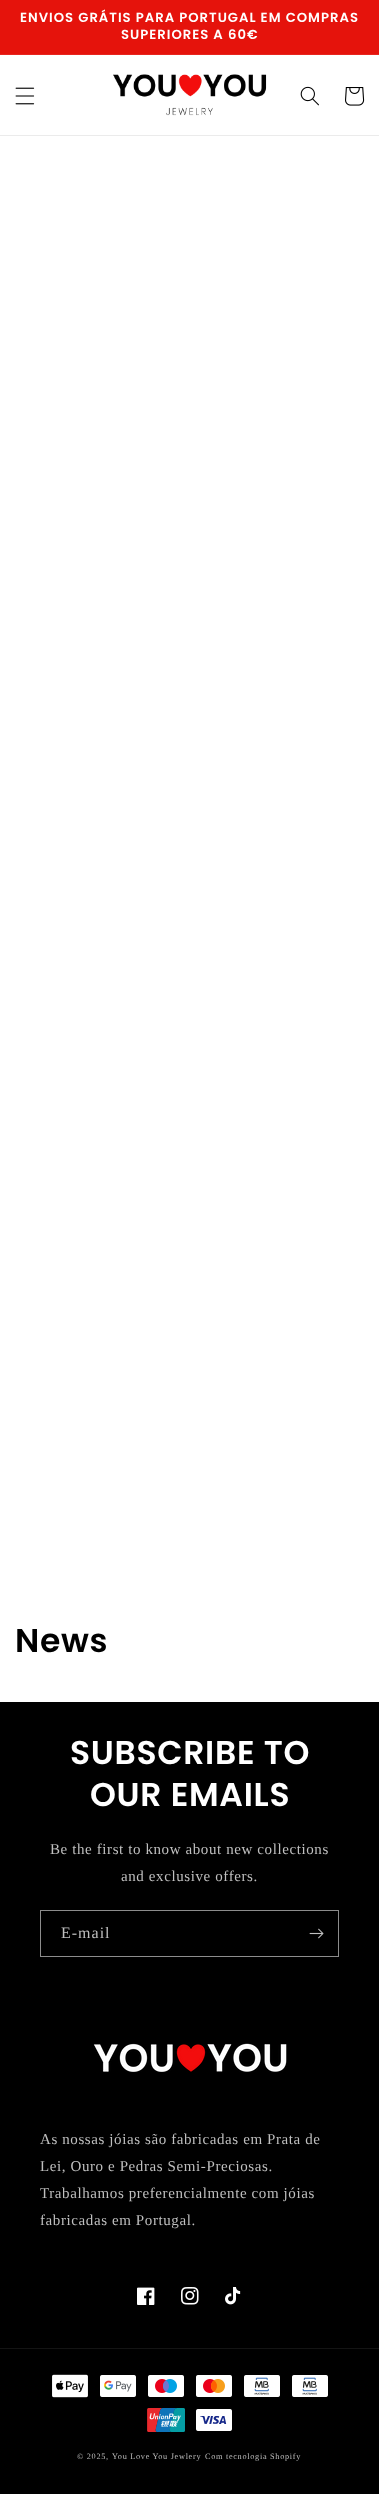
async function draw(canvas) {
  canvas.width = 379;
  canvas.height = 2494;
  const ctx = canvas.getContext('2d');
  ctx.miterLimit = 4;
  ctx.fontKerning = 'normal';
  function label(s, x, y, font, color) {
    ctx.font = font;
    ctx.fillStyle = color;
    ctx.fillText(s, x, y);
  }
  function rect(x, y, w, h, color) {
    ctx.fillStyle = color;
    ctx.fillRect(x, y, w, h);
  }
  async function image(src, x, y, w, h) {
    const img = new Image();
    img.src = src;
    await img.decode();
    ctx.drawImage(img, x, y, w, h);
  }

  rect(0, 0, 379, 2494, '#fff');
  rect(0, 0, 379, 54, '#e5130c');
  rect(0, 54, 379, 1, '#e7261f');
  ctx.letterSpacing = '1px';
  label('ENVIOS GRÁTIS PARA PORTUGAL EM COMPRAS', 20, 22, '600 13.2px Poppins', '#fff');
  label('SUPERIORES A 60€', 121, 39, '600 13.2px Poppins', '#fff');
  rect(0, 135, 379, 1, '#ebebeb');
  await image('assets/img1.png', 15, 87, 20, 18);
  await image('assets/img2.png', 113, 74, 154, 42);
  await image('assets/img3.png', 300, 86, 19, 20);
  await image('assets/img4.png', 345, 87, 20, 19);
  ctx.letterSpacing = '0.7px';
  label('News', 15, 1652, '600 33px Poppins', '#000');
  rect(0, 1702, 379, 792, '#000');
  label('SUBSCRIBE TO', 70, 1764, '600 33px Poppins', '#fff');
  label('OUR EMAILS', 90, 1806, '600 33px Poppins', '#fff');
  ctx.letterSpacing = '0.6px';
  label('Be the first to know about new collections', 50, 1854, '15px Liberation Serif', '#bfbfbf');
  label('and exclusive offers.', 121, 1881, '15px Liberation Serif', '#bfbfbf');
  ctx.strokeStyle = '#8c8c8c';
  ctx.strokeRect(40.5, 1910.5, 298, 46);
  ctx.letterSpacing = '1px';
  label('E-mail', 61, 1938, '16px Liberation Serif', '#bfbfbf');
  await image('assets/img5.png', 309, 1928, 15, 11);
  await image('assets/img6.png', 93, 2043, 194, 29);
  ctx.letterSpacing = '0.6px';
  label('As nossas jóias são fabricadas em Prata de', 40, 2144, '15px Liberation Serif', '#bfbfbf');
  label('Lei, Ouro e Pedras Semi-Preciosas.', 40, 2171, '15px Liberation Serif', '#bfbfbf');
  label('Trabalhamos preferencialmente com jóias', 40, 2198, '15px Liberation Serif', '#bfbfbf');
  label('fabricadas em Portugal.', 40, 2225, '15px Liberation Serif', '#bfbfbf');
  await image('assets/img7.png', 137, 2287, 18, 18);
  await image('assets/img8.png', 181, 2287, 18, 18);
  await image('assets/img9.png', 225, 2287, 16, 18);
  rect(0, 2348, 379, 1, '#141414');
  await image('assets/img10.png', 52, 2374, 36, 24);
  await image('assets/img11.png', 100, 2375, 36, 22);
  await image('assets/img12.png', 148, 2375, 36, 22);
  await image('assets/img13.png', 196, 2375, 36, 22);
  await image('assets/img14.png', 244, 2375, 36, 22);
  await image('assets/img14.png', 292, 2375, 36, 22);
  await image('assets/img15.png', 147, 2408, 38, 24);
  await image('assets/img16.png', 196, 2409, 36, 22);
  ctx.letterSpacing = '0.7px';
  label('© 2025,', 77, 2459, '8.25px Liberation Serif', '#bfbfbf');
  label('You Love You Jewlery', 112, 2459, '8.25px Liberation Serif', '#bfbfbf');
  label('Com tecnologia Shopify', 205, 2459, '8.25px Liberation Serif', '#bfbfbf');
}

draw(document.querySelector('canvas'));
